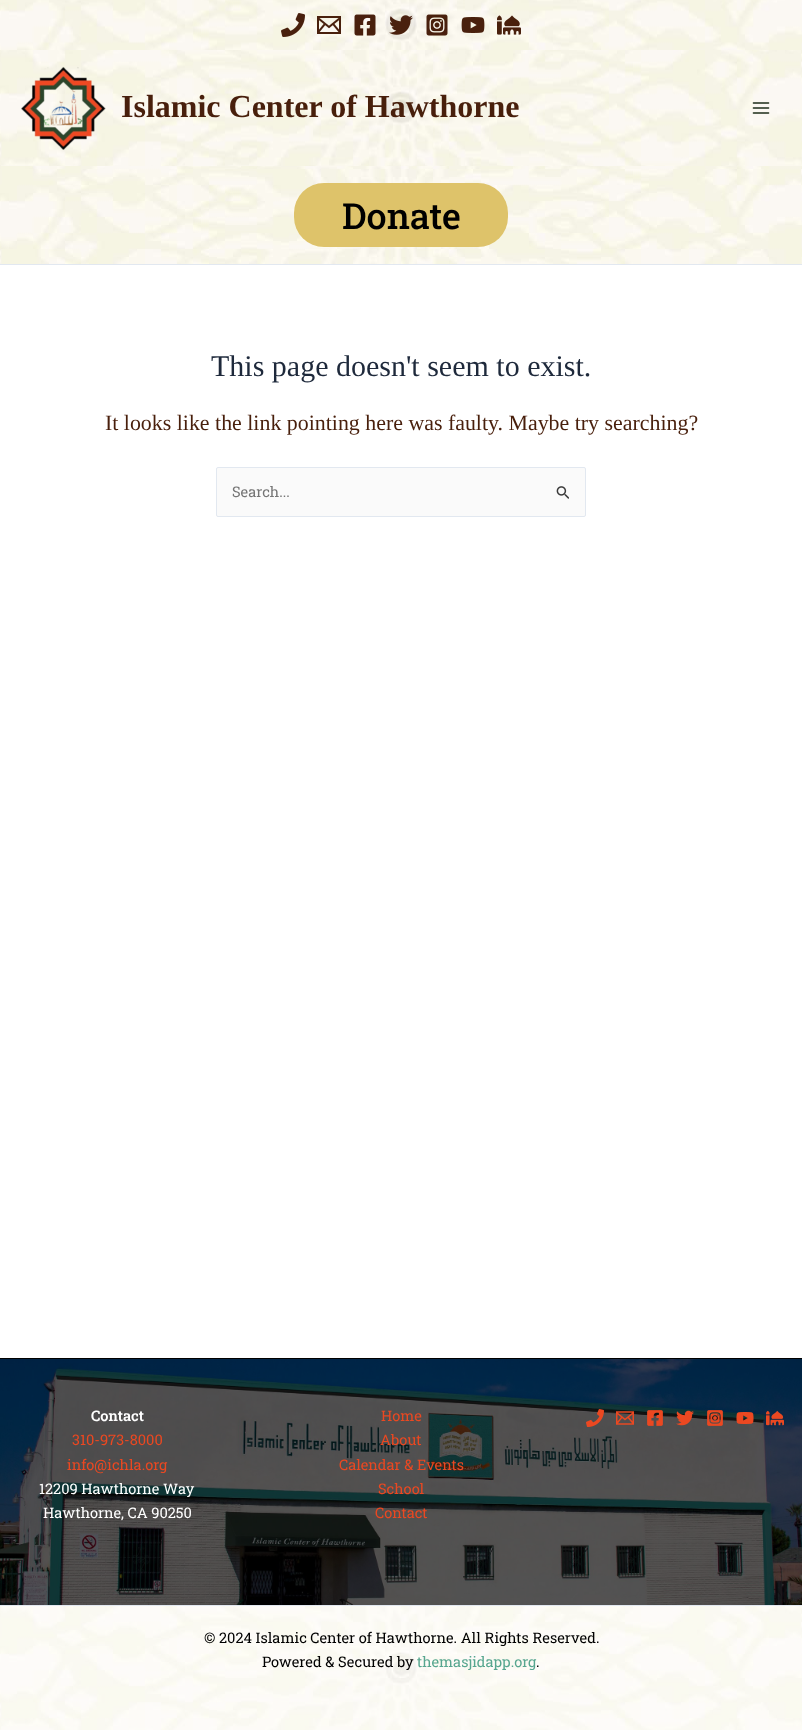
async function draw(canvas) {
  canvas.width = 802;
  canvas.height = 1730;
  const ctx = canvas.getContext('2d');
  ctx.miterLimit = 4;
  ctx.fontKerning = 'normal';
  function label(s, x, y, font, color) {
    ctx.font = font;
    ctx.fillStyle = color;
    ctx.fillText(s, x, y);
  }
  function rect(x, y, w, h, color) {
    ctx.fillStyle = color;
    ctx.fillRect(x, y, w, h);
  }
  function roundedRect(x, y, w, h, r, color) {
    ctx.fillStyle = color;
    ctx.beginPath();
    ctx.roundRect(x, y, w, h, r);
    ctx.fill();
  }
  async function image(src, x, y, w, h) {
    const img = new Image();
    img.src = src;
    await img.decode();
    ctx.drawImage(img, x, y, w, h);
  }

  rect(0, 0, 802, 1730, '#fff');
  await image('assets/img1.png', 0, 0, 802, 50);
  await image('assets/img2.png', 281, 13, 24, 24);
  await image('assets/img3.png', 317, 16, 24, 18);
  await image('assets/img4.png', 354, 14, 22, 22);
  await image('assets/img5.png', 389, 15, 24, 20);
  await image('assets/img6.png', 426, 14, 22, 22);
  await image('assets/img7.png', 461, 17, 24, 16);
  await image('assets/img8.png', 497, 15, 24, 20);
  await image('assets/img9.png', 0, 50, 802, 116);
  await image('assets/img10.png', 21, 66, 85, 84);
  label('Islamic Center of Hawthorne', 121, 117, 'bold 32px Liberation Serif', '#481f0c');
  await image('assets/img11.png', 752, 102, 18, 12);
  await image('assets/img12.png', 0, 166, 802, 98);
  rect(0, 264, 802, 1, '#e2e8f0');
  roundedRect(294, 183, 214, 64, 30, '#dec36a');
  label('Donate', 342, 229, '500 36px Roboto Slab', '#000');
  label('This page doesn\'t seem to exist.', 211, 376, '30px Liberation Serif', '#1e293b');
  label('It looks like the link pointing here was faulty. Maybe try searching?', 105, 430, '21.9px Liberation Serif', '#481f0c');
  ctx.fillStyle = '#fafafa';
  ctx.beginPath();
  ctx.roundRect(216.5, 467.5, 369, 49, 1.5);
  ctx.fill();
  ctx.strokeStyle = '#e2e8f0';
  ctx.stroke();
  label('Search...', 232, 497, '14.6px Roboto Slab', '#757575');
  await image('assets/img13.png', 556, 486, 13, 13);
  await image('assets/img14.png', 0, 1359, 802, 246);
  rect(0, 1358, 802, 1, '#000');
  label('Contact', 91, 1421, '600 14.6px Roboto Slab', '#fff');
  label('310-973-8000', 72, 1445, '14.6px Roboto Slab', '#eb4821');
  label('info@ichla.org', 67, 1470, '14.6px Roboto Slab', '#eb4821');
  label('12209 Hawthorne Way', 39, 1494, '14.6px Roboto Slab', '#fff');
  label('Hawthorne, CA 90250', 43, 1518, '14.6px Roboto Slab', '#fff');
  label('Home', 381, 1421, '14.6px Roboto Slab', '#eb4821');
  label('About', 380, 1445, '14.6px Roboto Slab', '#eb4821');
  label('Calendar & Events', 339, 1470, '14.6px Roboto Slab', '#eb4821');
  label('School', 378, 1494, '14.6px Roboto Slab', '#eb4821');
  label('Contact', 375, 1518, '14.6px Roboto Slab', '#eb4821');
  await image('assets/img15.png', 586, 1409, 18, 18);
  await image('assets/img16.png', 616, 1411, 18, 14);
  await image('assets/img17.png', 647, 1410, 16, 16);
  await image('assets/img18.png', 676, 1410, 18, 16);
  await image('assets/img19.png', 707, 1410, 16, 16);
  await image('assets/img20.png', 736, 1412, 18, 12);
  await image('assets/img21.png', 766, 1410, 18, 16);
  await image('assets/img22.png', 0, 1606, 802, 124);
  rect(0, 1605, 802, 1, '#e2e8f0');
  label('© 2024 Islamic Center of Hawthorne. All Rights Reserved.', 204, 1643, '14.6px Roboto Slab', '#000');
  label('Powered & Secured by', 262, 1667, '14.6px Roboto Slab', '#000');
  label('themasjidapp.org', 417, 1667, '14.6px Roboto Slab', '#57a68f');
  label('.', 536, 1667, '14.6px Roboto Slab', '#000');
}

draw(document.querySelector('canvas'));
